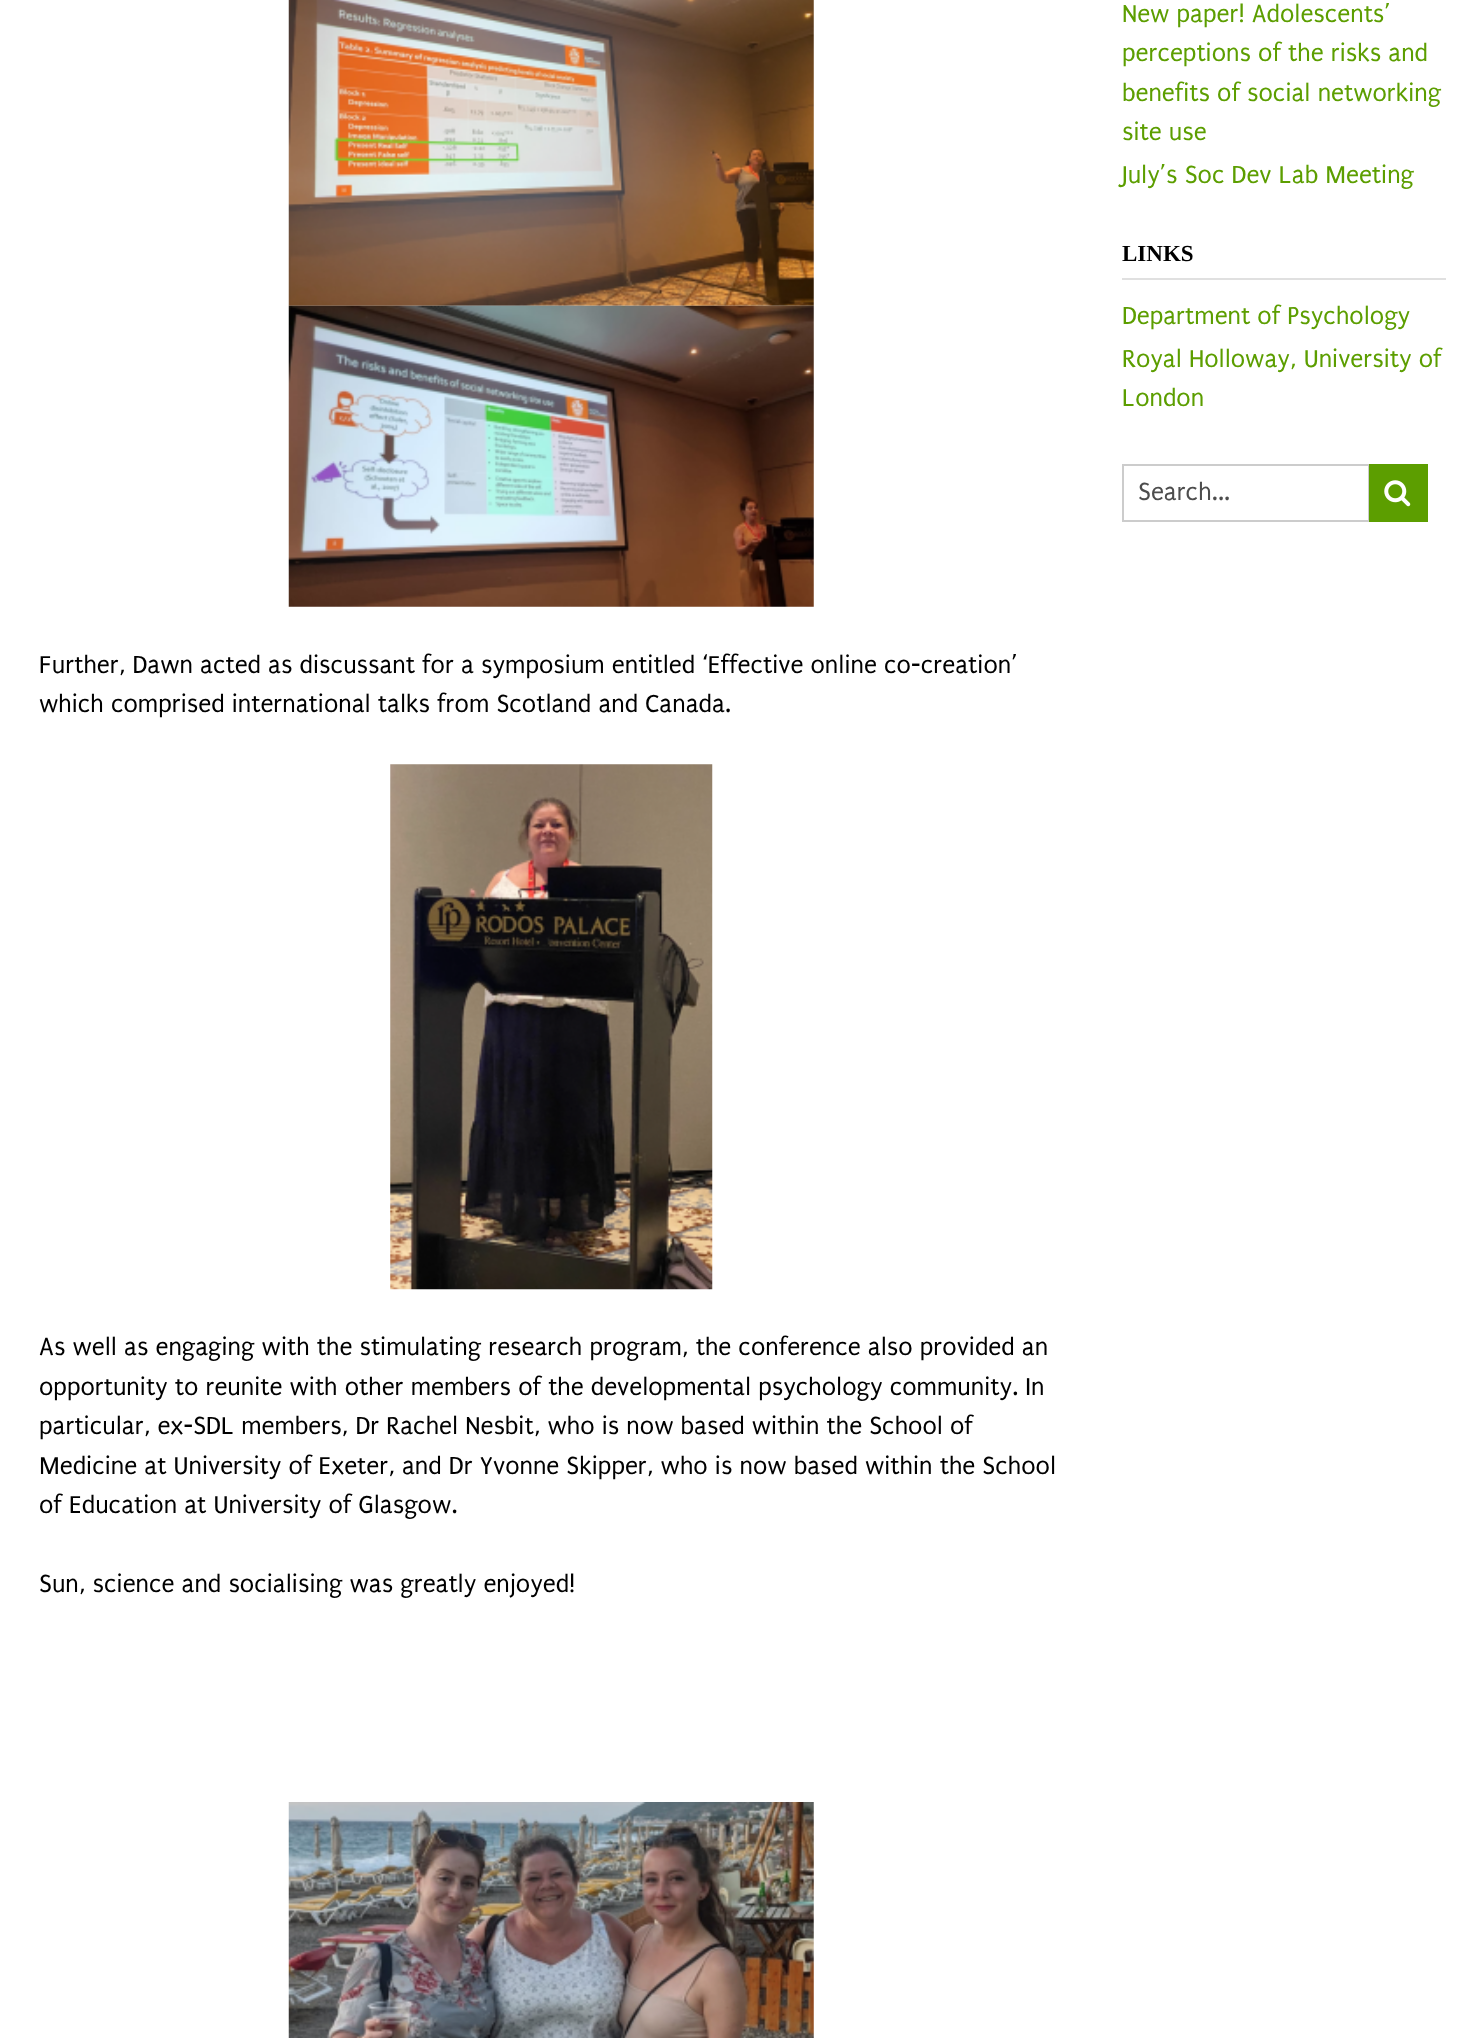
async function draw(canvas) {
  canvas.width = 1483;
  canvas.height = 2038;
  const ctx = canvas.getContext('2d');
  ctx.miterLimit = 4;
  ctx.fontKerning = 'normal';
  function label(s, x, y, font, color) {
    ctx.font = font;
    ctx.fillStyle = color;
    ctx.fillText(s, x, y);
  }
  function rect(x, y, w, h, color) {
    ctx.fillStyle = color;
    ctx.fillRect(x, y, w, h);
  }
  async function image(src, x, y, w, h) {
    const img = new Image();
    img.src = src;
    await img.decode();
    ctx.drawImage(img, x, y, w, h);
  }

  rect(0, 0, 1483, 2038, '#fff');
  label('New paper! Adolescents’', 1122, 22, '26.25px Puritan', '#5c9e00');
  label('perceptions of the risks and', 1122, 61, '26.25px Puritan', '#5c9e00');
  label('benefits of social networking', 1122, 101, '26.25px Puritan', '#5c9e00');
  label('site use', 1122, 140, '26.25px Puritan', '#5c9e00');
  label('July’s Soc Dev Lab Meeting', 1122, 183, '26.25px Puritan', '#5c9e00');
  rect(1122, 278, 324, 2, '#e0e0e0');
  label('LINKS', 1122, 261, 'bold 23px Liberation Serif', '#000');
  label('Department of Psychology', 1122, 324, '26.25px Puritan', '#5c9e00');
  label('Royal Holloway, University of', 1122, 367, '26.25px Puritan', '#5c9e00');
  label('London', 1122, 406, '26.25px Puritan', '#5c9e00');
  ctx.strokeStyle = '#ccc';
  ctx.lineWidth = 2;
  ctx.strokeRect(1123, 465, 246, 56);
  label('Search...', 1138, 500, '26.25px Puritan', '#4d4d4d');
  rect(1369, 464, 59, 58, '#5c9e00');
  await image('assets/img1.png', 1384, 480, 27, 27);
  await image('assets/img2.png', 288, 0, 526, 306);
  await image('assets/img3.png', 288, 305, 526, 302);
  label('Further, Dawn acted as discussant for a symposium entitled ‘Effective online co-creation’', 39, 673, '26.25px Puritan', '#000');
  label('which comprised international talks from Scotland and Canada.', 39, 712, '26.25px Puritan', '#000');
  await image('assets/img4.png', 390, 764, 323, 526);
  label('As well as engaging with the stimulating research program, the conference also provided an', 39, 1355, '26.25px Puritan', '#000');
  label('opportunity to reunite with other members of the developmental psychology community. In', 39, 1395, '26.25px Puritan', '#000');
  label('particular, ex-SDL members, Dr Rachel Nesbit, who is now based within the School of', 39, 1434, '26.25px Puritan', '#000');
  label('Medicine at University of Exeter, and Dr Yvonne Skipper, who is now based within the School', 39, 1474, '26.25px Puritan', '#000');
  label('of Education at University of Glasgow.', 39, 1513, '26.25px Puritan', '#000');
  label('Sun, science and socialising was greatly enjoyed!', 39, 1592, '26.25px Puritan', '#000');
  await image('assets/img5.png', 288, 1802, 526, 236);
}

draw(document.querySelector('canvas'));
